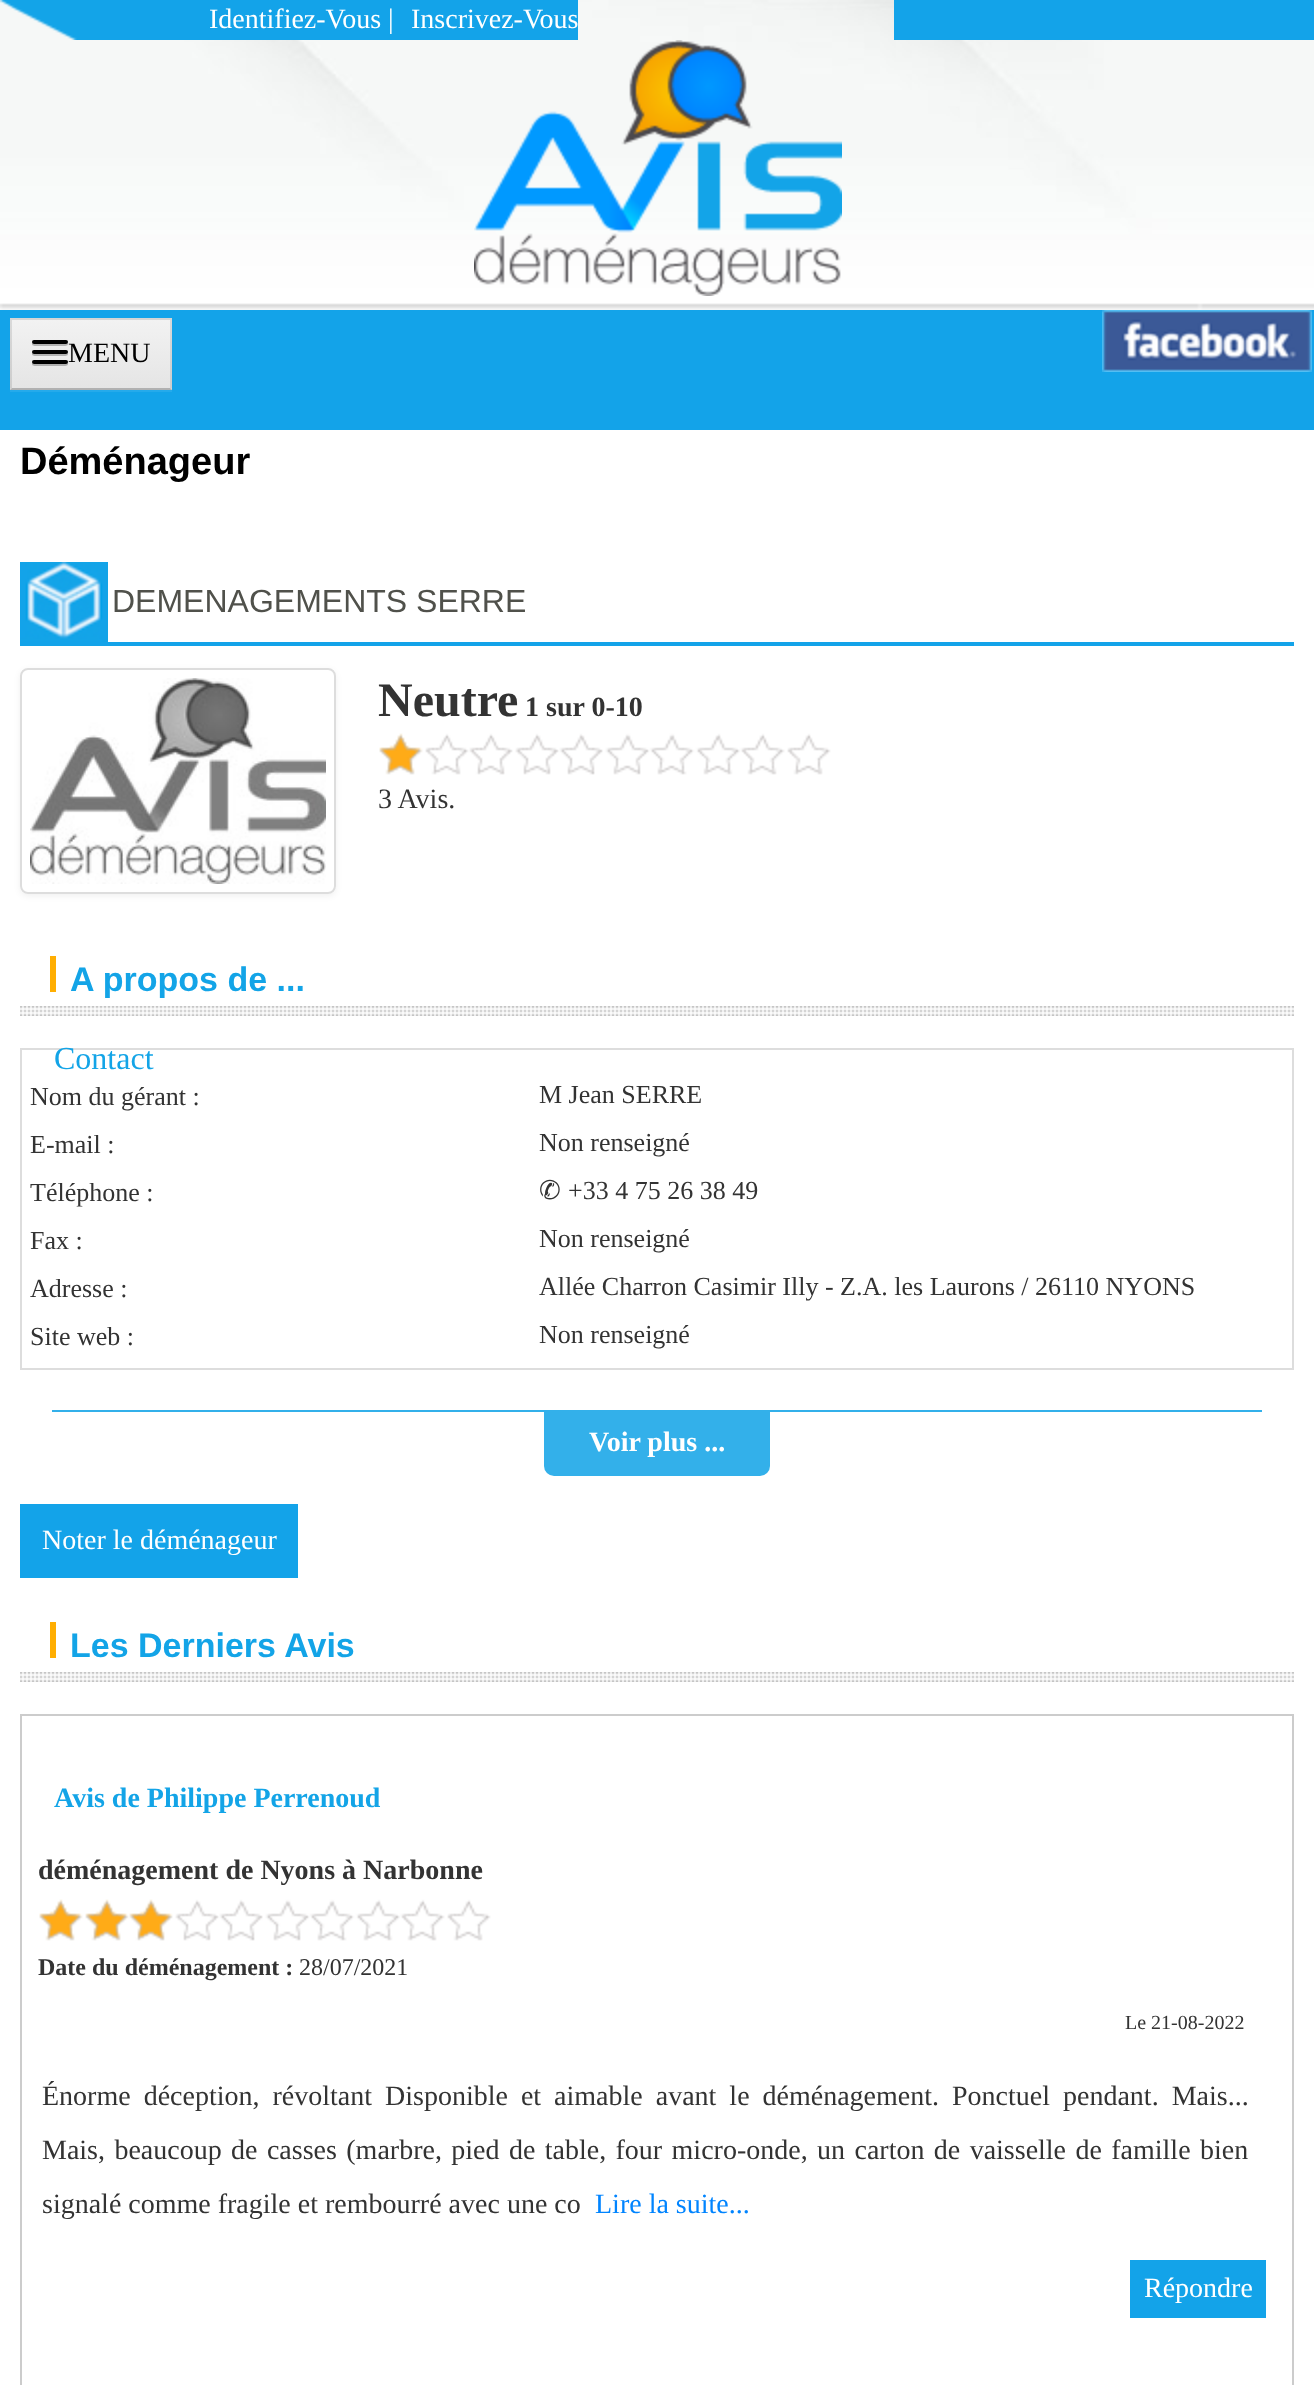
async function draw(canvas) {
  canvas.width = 1314;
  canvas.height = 2385;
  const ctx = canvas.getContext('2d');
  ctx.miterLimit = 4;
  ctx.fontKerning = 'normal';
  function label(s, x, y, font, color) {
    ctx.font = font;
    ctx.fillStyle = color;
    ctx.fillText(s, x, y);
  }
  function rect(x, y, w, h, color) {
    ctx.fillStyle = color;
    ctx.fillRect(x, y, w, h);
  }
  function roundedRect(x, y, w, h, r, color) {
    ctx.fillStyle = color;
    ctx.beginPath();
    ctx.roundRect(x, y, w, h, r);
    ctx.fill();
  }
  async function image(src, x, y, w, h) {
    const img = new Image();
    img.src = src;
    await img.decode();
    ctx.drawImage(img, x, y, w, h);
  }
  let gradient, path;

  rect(0, 0, 1314, 2385, '#fff');
  await image('assets/img1.png', 0, 0, 1314, 310);
  await image('assets/img2.png', 0, 0, 100, 40);
  rect(100, 0, 478, 40, '#13a3e9');
  label('Identifiez-Vous |', 209, 28, '28px Liberation Serif', '#fff');
  label('Inscrivez-Vous', 411, 28, '28px Liberation Serif', '#fff');
  rect(894, 0, 420, 40, '#13a3e9');
  await image('assets/img3.png', 474, 40, 368, 256);
  rect(0, 310, 1314, 120, '#13a3e9');
  rect(10, 390, 162, 2, '#25aaeb');
  rect(10, 318, 162, 72, '#ededed');
  gradient = ctx.createLinearGradient(91, 320, 91, 388);
  gradient.addColorStop(0, '#f2f2f2');
  gradient.addColorStop(1, '#e5e5e5');
  ctx.fillStyle = gradient;
  ctx.fillRect(10, 320, 162, 68);
  ctx.fillStyle = '#d5d5d5';
  path = new Path2D('M10 318H172L170 320H12Z');
  ctx.fill(path);
  ctx.fillStyle = '#0000001a';
  path = new Path2D('M172 318V390L170 388V320Z');
  ctx.fill(path);
  ctx.fillStyle = '#00000040';
  path = new Path2D('M172 390H10L12 388H170Z');
  ctx.fill(path);
  ctx.fillStyle = '#0000001a';
  path = new Path2D('M10 390V318L12 320V388Z');
  ctx.fill(path);
  ctx.fillStyle = '#b2b2b2';
  path = new Path2D('M32.5 343C30 347 39 346 39.5 346H60.5C61 346 70 347 67.5 343C67.5 343.5 66.5 344 66 344H34C33.5 344 32.5 343.5 32.5 343Z');
  ctx.fill(path);
  roundedRect(32, 340, 36, 4, 2, '#000');
  ctx.fillStyle = '#b0b0b0';
  path = new Path2D('M32.5 353C30 357 39 356 39.5 356H60.5C61 356 70 357 67.5 353C67.5 353.5 66.5 354 66 354H34C33.5 354 32.5 353.5 32.5 353Z');
  ctx.fill(path);
  roundedRect(32, 350, 36, 4, 2, '#000');
  ctx.fillStyle = '#afafaf';
  path = new Path2D('M32.5 363C30 367 39 366 39.5 366H60.5C61 366 70 367 67.5 363C67.5 363.5 66.5 364 66 364H34C33.5 364 32.5 363.5 32.5 363Z');
  ctx.fill(path);
  roundedRect(32, 360, 36, 4, 2, '#000');
  label('MENU', 68, 362, '28px Liberation Serif', '#000');
  await image('assets/img4.png', 1102, 310, 210, 62);
  label('Déménageur', 20, 474, 'bold 38px Liberation Sans', '#000');
  await image('assets/img5.png', 20, 562, 88, 80);
  rect(20, 642, 1274, 4, '#13a3e9');
  label('DEMENAGEMENTS SERRE', 112, 612, '32px Liberation Sans', '#50514b');
  ctx.save();
  path = new Path2D('M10 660H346V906H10ZM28 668H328C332.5 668 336 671.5 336 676V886C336 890.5 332.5 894 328 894H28C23.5 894 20 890.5 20 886V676C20 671.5 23.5 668 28 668Z');
  ctx.clip(path, 'evenodd');
  ctx.fillStyle = '#0000000f';
  ctx.filter = 'blur(3px)';
  ctx.beginPath();
  ctx.roundRect(20, 670, 316, 226, 8);
  ctx.fill();
  ctx.filter = 'none';
  ctx.restore();
  ctx.beginPath();
  ctx.roundRect(21, 669, 314, 224, 7);
  ctx.strokeStyle = '#ddd';
  ctx.lineWidth = 2;
  ctx.stroke();
  await image('assets/img6.png', 30, 678, 296, 206);
  label('Neutre', 378, 716, 'bold 48px Liberation Serif', '#333');
  label('1 sur 0-10', 525, 716, 'bold 28px Liberation Serif', '#333');
  rect(379, 733, 44, 42, '#ffab17');
  await image('assets/img7.png', 378, 732, 453, 44);
  label('3 Avis.', 378, 808, '28px Liberation Serif', '#333');
  await image('assets/img8.png', 20, 1006, 1274, 10);
  rect(50, 956, 6, 36, '#ffae02');
  label('A propos de ...', 70, 991, 'bold 34px Liberation Sans', '#13a4e7');
  ctx.strokeRect(21, 1049, 1272, 320);
  label('Contact', 54, 1069, '32px Liberation Serif', '#13a4e7');
  label('Nom du gérant :', 30, 1105, '26px Liberation Serif', '#333');
  label('M Jean SERRE', 539, 1103, '26px Liberation Serif', '#333');
  label('E-mail :', 30, 1153, '26px Liberation Serif', '#333');
  label('Non renseigné', 539, 1151, '26px Liberation Serif', '#333');
  label('Téléphone :', 30, 1201, '26px Liberation Serif', '#333');
  label('✆', 539, 1199, '26px DejaVu Sans', '#333');
  label('+33 4 75 26 38 49', 568, 1199, '26px Liberation Serif', '#333');
  label('Fax :', 30, 1249, '26px Liberation Serif', '#333');
  label('Non renseigné', 539, 1247, '26px Liberation Serif', '#333');
  label('Adresse :', 30, 1297, '26px Liberation Serif', '#333');
  label('Allée Charron Casimir Illy - Z.A. les Laurons / 26110 NYONS', 539, 1295, '26px Liberation Serif', '#333');
  label('Site web :', 30, 1345, '26px Liberation Serif', '#333');
  label('Non renseigné', 539, 1343, '26px Liberation Serif', '#333');
  rect(52, 1410, 1210, 2, '#33b0ea');
  ctx.beginPath();
  ctx.roundRect(544, 1410, 226, 66, [0, 0, 10, 10]);
  ctx.fill();
  label('Voir plus ...', 589, 1451, 'bold 28px Liberation Serif', '#fff');
  rect(20, 1504, 278, 74, '#13a3e9');
  label('Noter le déménageur', 42, 1549, '28px Liberation Serif', '#fff');
  await image('assets/img8.png', 20, 1672, 1274, 10);
  rect(50, 1622, 6, 36, '#ffae02');
  label('Les Derniers Avis', 70, 1657, 'bold 34px Liberation Sans', '#13a4e7');
  ctx.strokeStyle = '#ccc';
  ctx.strokeRect(21, 1715, 1272, 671);
  label('Avis de Philippe Perrenoud', 54, 1807, 'bold 28px Liberation Serif', '#13a4e7');
  label('déménagement de Nyons à Narbonne', 38, 1879, 'bold 28px Liberation Serif', '#333');
  rect(39, 1899, 134, 42, '#ffab17');
  await image('assets/img9.png', 38, 1898, 453, 44);
  label('Date du déménagement :', 38, 1975, 'bold 24px Liberation Serif', '#333');
  label('28/07/2021', 299, 1975, '24px Liberation Serif', '#333');
  label('Le 21-08-2022', 1125, 2029, '20px Liberation Serif', '#333');
  ctx.wordSpacing = '6px';
  label('Énorme déception, révoltant', 42, 2105, '28px Liberation Serif', '#333');
  label('Disponible et aimable avant le déménagement. Ponctuel pendant. Mais...', 385, 2105, '28px Liberation Serif', '#333');
  ctx.wordSpacing = '2.4px';
  label('Mais, beaucoup de casses (marbre, pied de table, four micro-onde, un carton de vaisselle de famille bien', 42, 2159, '28px Liberation Serif', '#333');
  ctx.wordSpacing = '0px';
  label('signalé comme fragile et rembourré avec une co', 42, 2213, '28px Liberation Serif', '#333');
  label('Lire la suite...', 595, 2213, '28px Liberation Serif', '#0084ff');
  rect(1130, 2260, 136, 58, '#13a3e9');
  label('Répondre', 1144, 2297, '28px Liberation Serif', '#fff');
}

draw(document.querySelector('canvas'));
